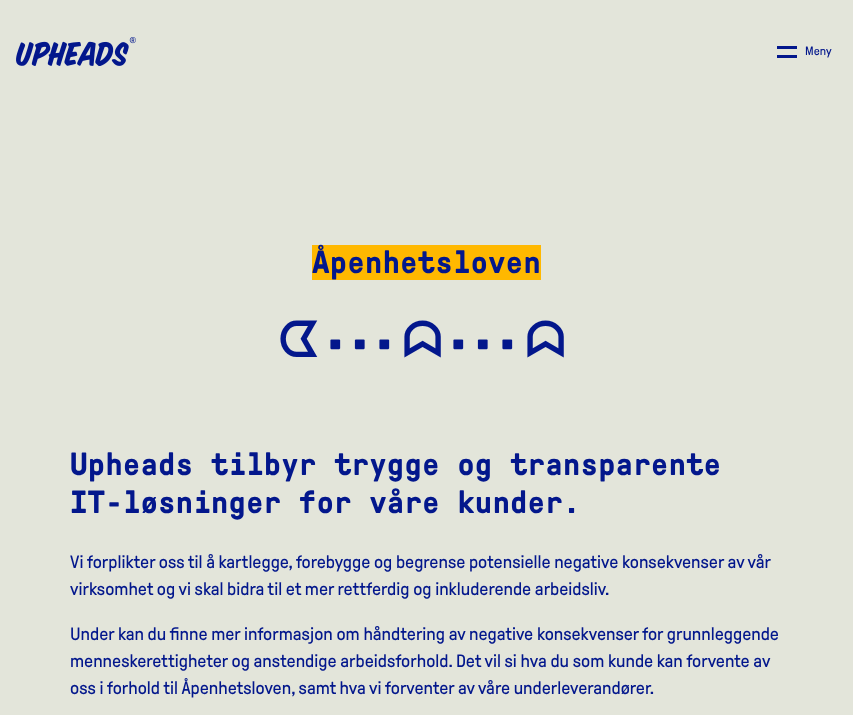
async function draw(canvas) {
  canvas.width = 853;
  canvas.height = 715;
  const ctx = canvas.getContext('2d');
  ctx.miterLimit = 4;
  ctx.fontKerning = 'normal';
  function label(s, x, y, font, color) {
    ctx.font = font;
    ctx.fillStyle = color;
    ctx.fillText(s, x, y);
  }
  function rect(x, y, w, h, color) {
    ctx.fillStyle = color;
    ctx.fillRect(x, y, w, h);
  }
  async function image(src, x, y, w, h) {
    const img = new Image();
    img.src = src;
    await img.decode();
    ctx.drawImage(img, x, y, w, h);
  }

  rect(0, 0, 853, 715, '#e3e5da');
  await image('assets/img1.png', 16, 37, 120, 29);
  rect(777, 46, 20, 3, '#03178c');
  rect(777, 55, 20, 3, '#03178c');
  label('Meny', 805, 55, '12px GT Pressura', '#03178c');
  rect(312, 245, 229, 35, '#ffb800');
  label('Åpenhetsloven', 312, 273, 'bold 32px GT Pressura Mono', '#03178c');
  ctx.letterSpacing = '10px';
  label('ᗧ', 278, 357, 'bold 48px FreeSans', '#03178c');
  label('···', 328, 357, 'bold 48px GT Pressura', '#03178c');
  label('ᗣ', 402, 357, 'bold 48px FreeSans', '#03178c');
  label('···', 451, 357, 'bold 48px GT Pressura', '#03178c');
  label('ᗣ', 525, 357, 'bold 48px FreeSans', '#03178c');
  ctx.letterSpacing = '0px';
  label('Upheads tilbyr trygge og transparente', 70, 475, 'bold 32px GT Pressura Mono', '#03178c');
  label('IT-løsninger for våre kunder.', 70, 513, 'bold 32px GT Pressura Mono', '#03178c');
  label('Vi forplikter oss til å kartlegge, forebygge og begrense potensielle negative konsekvenser av vår', 70, 568, '18px GT Pressura', '#03178c');
  label('virksomhet og vi skal bidra til et mer rettferdig og inkluderende arbeidsliv.', 70, 595, '18px GT Pressura', '#03178c');
  label('Under kan du finne mer informasjon om håndtering av negative konsekvenser for grunnleggende', 70, 640, '18px GT Pressura', '#03178c');
  label('menneskerettigheter og anstendige arbeidsforhold. Det vil si hva du som kunde kan forvente av', 70, 667, '18px GT Pressura', '#03178c');
  label('oss i forhold til Åpenhetsloven, samt hva vi forventer av våre underleverandører.', 70, 694, '18px GT Pressura', '#03178c');
}

draw(document.querySelector('canvas'));
